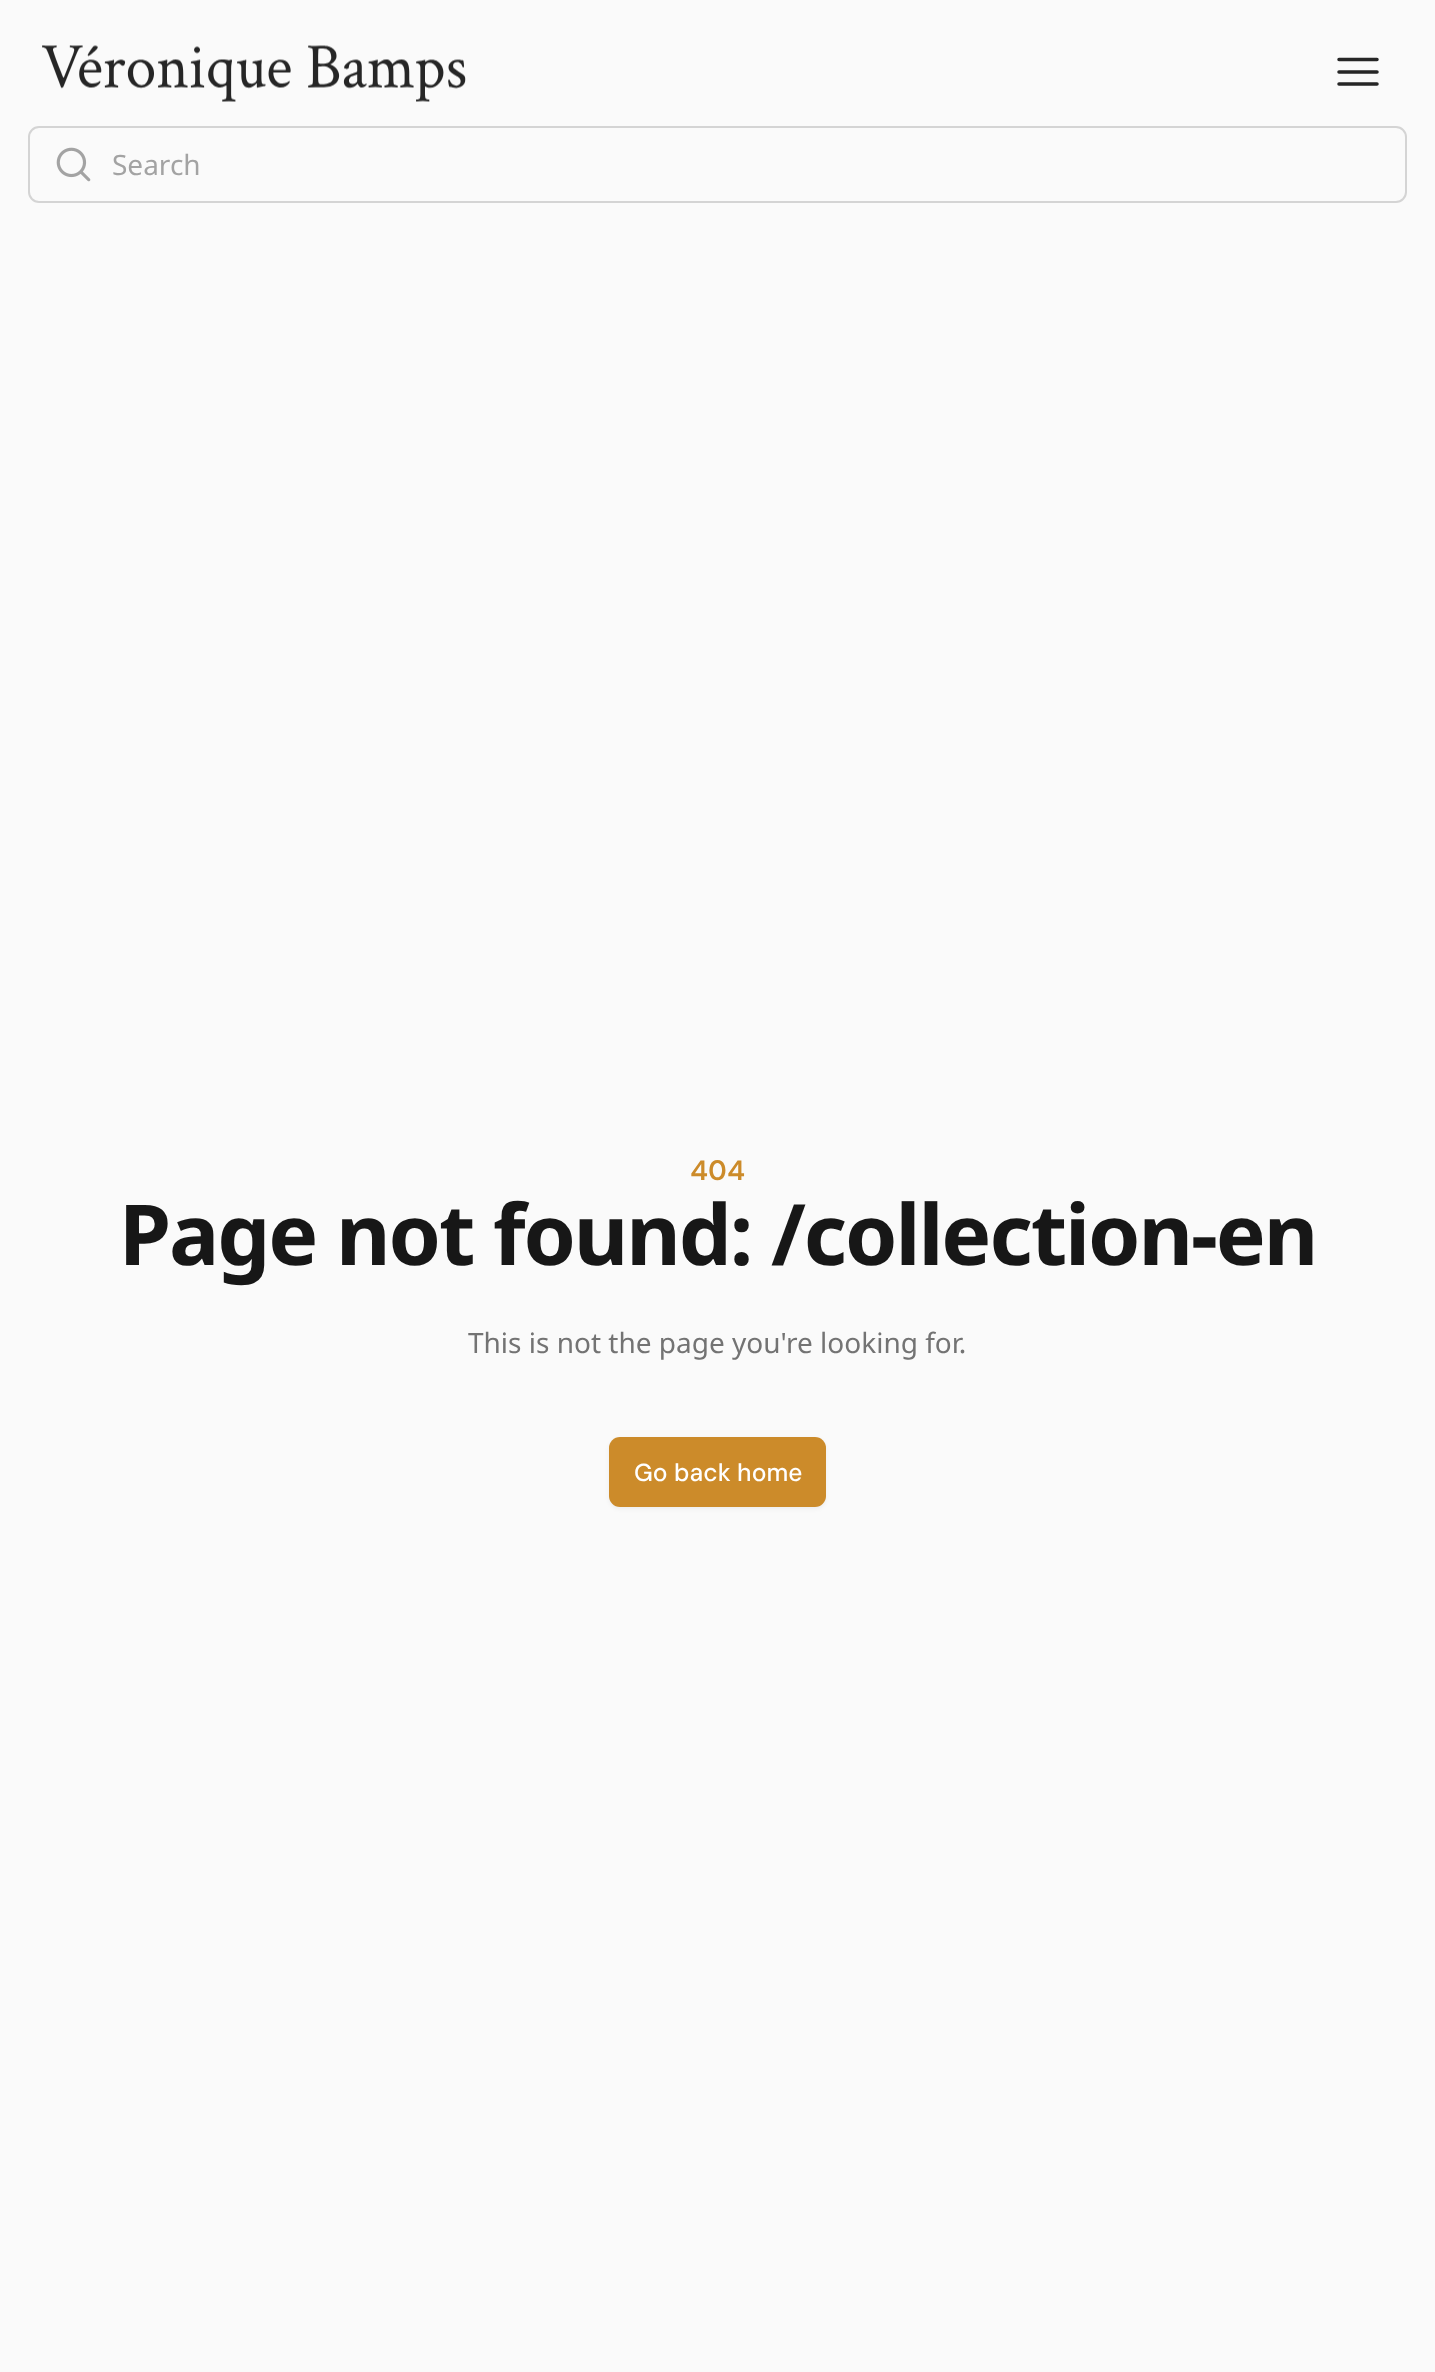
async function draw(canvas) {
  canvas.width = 1435;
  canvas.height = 2372;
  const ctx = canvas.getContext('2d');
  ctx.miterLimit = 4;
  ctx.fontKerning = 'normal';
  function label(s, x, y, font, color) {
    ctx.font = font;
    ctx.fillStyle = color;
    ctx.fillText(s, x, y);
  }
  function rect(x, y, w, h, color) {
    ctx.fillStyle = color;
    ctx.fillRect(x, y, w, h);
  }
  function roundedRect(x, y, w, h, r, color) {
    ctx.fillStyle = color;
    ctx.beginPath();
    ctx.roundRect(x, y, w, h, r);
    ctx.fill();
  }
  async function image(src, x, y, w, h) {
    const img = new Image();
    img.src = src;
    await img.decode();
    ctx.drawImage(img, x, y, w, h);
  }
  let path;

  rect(0, 0, 1435, 2372, '#fafafa');
  await image('assets/img1.png', 42, 45, 424, 57);
  path = new Path2D('M1339 59.5H1377M1339 72H1377M1339 84H1377');
  ctx.strokeStyle = '#262626';
  ctx.lineWidth = 3.5;
  ctx.lineCap = 'round';
  ctx.lineJoin = 'round';
  ctx.stroke(path);
  ctx.beginPath();
  ctx.roundRect(29, 127, 1377, 75, 10);
  ctx.strokeStyle = '#d4d4d4';
  ctx.lineWidth = 2;
  ctx.lineJoin = 'miter';
  ctx.stroke();
  await image('assets/img2.png', 56, 147, 35, 35);
  label('Search', 112, 175, '28px Noto Sans', '#a3a3a3');
  label('404', 690, 1180, '600 28px DM Sans', '#cc8b2a');
  ctx.letterSpacing = '-2.1px';
  label('Page not found: /collection-en', 119, 1265, 'bold 84px Noto Sans', '#171717');
  ctx.letterSpacing = '0px';
  label('This is not the page you\'re looking for.', 468, 1353, '28px Noto Sans', '#737373');
  ctx.fillStyle = '#0000000d';
  ctx.filter = 'blur(2px)';
  ctx.beginPath();
  ctx.roundRect(609, 1439, 217, 70, 11);
  ctx.fill();
  ctx.filter = 'none';
  roundedRect(609, 1437, 217, 70, 11, '#cc8b2a');
  label('Go back home', 634, 1481, '500 24.5px DM Sans', '#fff');
}

draw(document.querySelector('canvas'));
